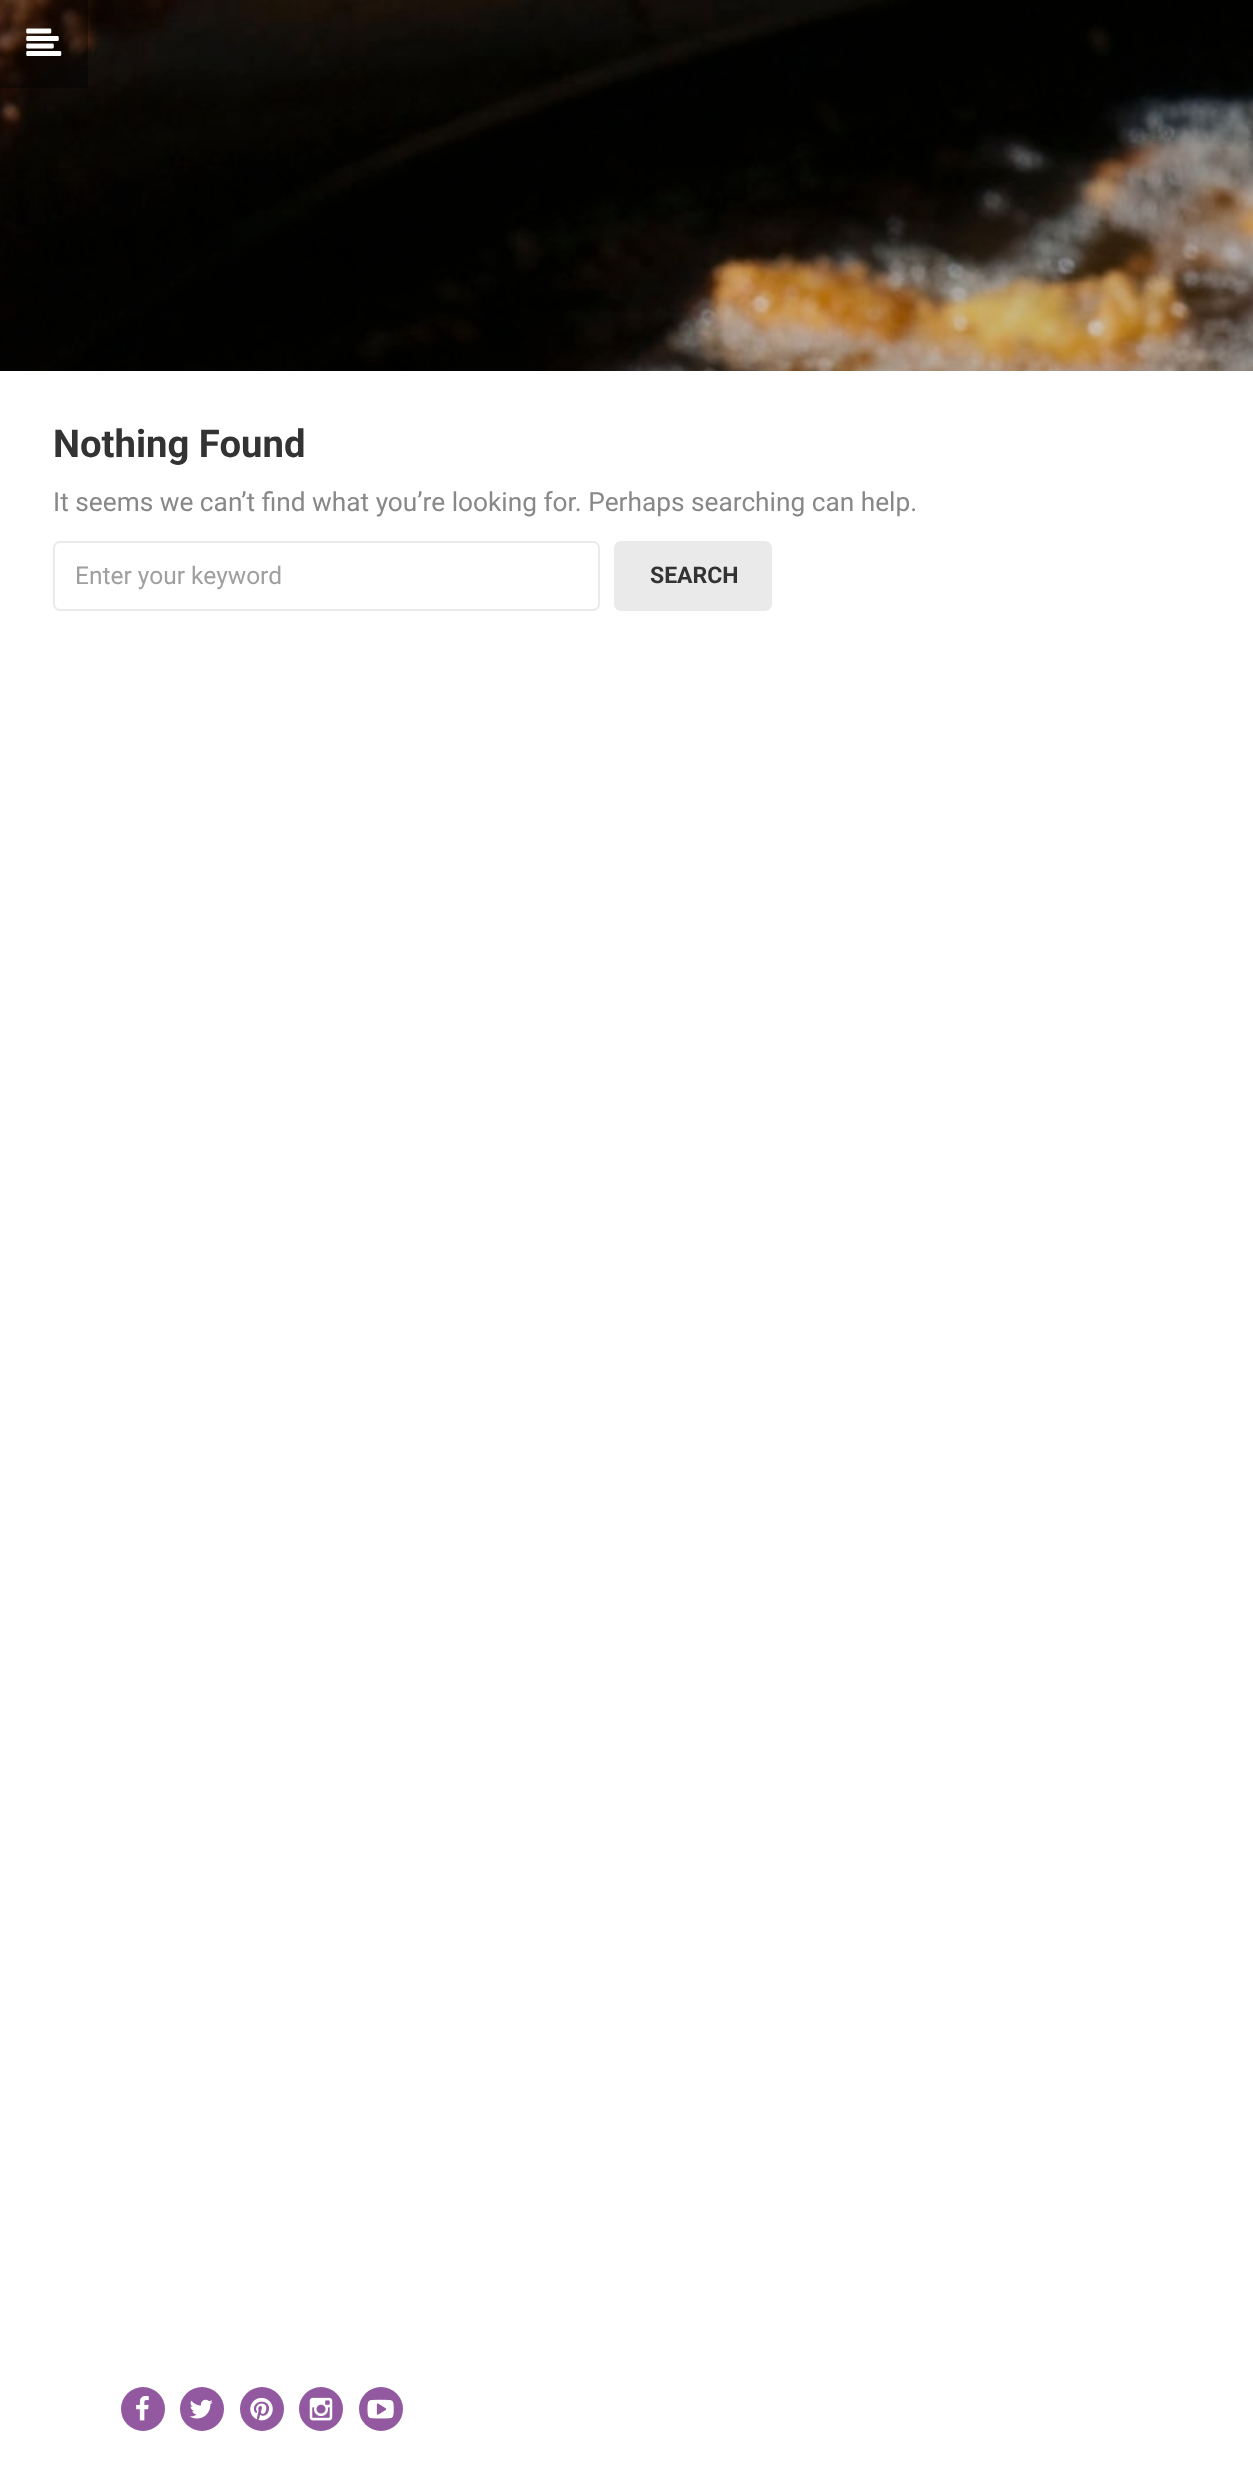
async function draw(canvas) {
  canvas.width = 1253;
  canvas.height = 2482;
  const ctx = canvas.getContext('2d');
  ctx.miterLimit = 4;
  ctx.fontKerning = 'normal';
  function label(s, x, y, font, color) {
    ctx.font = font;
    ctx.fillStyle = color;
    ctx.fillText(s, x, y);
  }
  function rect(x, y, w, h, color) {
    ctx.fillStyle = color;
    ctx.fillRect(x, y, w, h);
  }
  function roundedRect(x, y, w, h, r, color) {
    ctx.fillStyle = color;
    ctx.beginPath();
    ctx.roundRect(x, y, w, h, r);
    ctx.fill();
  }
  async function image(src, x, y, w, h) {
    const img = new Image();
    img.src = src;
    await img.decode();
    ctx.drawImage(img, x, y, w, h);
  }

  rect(0, 0, 1253, 2482, '#fff');
  await image('assets/img7.png', 0, 0, 1253, 371);
  rect(0, 0, 88, 88, '#00000066');
  await image('assets/img1.png', 26, 28, 36, 28);
  ctx.fillStyle = '#9259a0';
  ctx.beginPath();
  ctx.arc(143, 2409, 22, 0, 2 * Math.PI);
  ctx.fill();
  await image('assets/img2.png', 136, 2396, 13, 25);
  ctx.beginPath();
  ctx.arc(202, 2409, 22, 0, 2 * Math.PI);
  ctx.fill();
  await image('assets/img3.png', 189, 2399, 24, 20);
  ctx.beginPath();
  ctx.arc(262, 2409, 22, 0, 2 * Math.PI);
  ctx.fill();
  await image('assets/img4.png', 250, 2397, 23, 24);
  ctx.beginPath();
  ctx.arc(321, 2409, 22, 0, 2 * Math.PI);
  ctx.fill();
  await image('assets/img5.png', 309, 2397, 24, 24);
  ctx.beginPath();
  ctx.arc(381, 2409, 22, 0, 2 * Math.PI);
  ctx.fill();
  await image('assets/img6.png', 367, 2399, 27, 20);
  label('Nothing Found', 53, 457, 'bold 38.25px Roboto', '#333');
  label('It seems we can’t find what you’re looking for. Perhaps searching can help.', 53, 511, '26.25px Roboto', '#888');
  ctx.beginPath();
  ctx.roundRect(54, 542, 545, 68, 6);
  ctx.strokeStyle = '#eaeaea';
  ctx.lineWidth = 2;
  ctx.stroke();
  label('Enter your keyword', 75, 584, '24.5px Roboto', '#9f9f9f');
  roundedRect(614, 541, 158, 70, 7, '#eaeaea');
  label('SEARCH', 650, 583, 'bold 23px Roboto', '#333');
}

draw(document.querySelector('canvas'));
